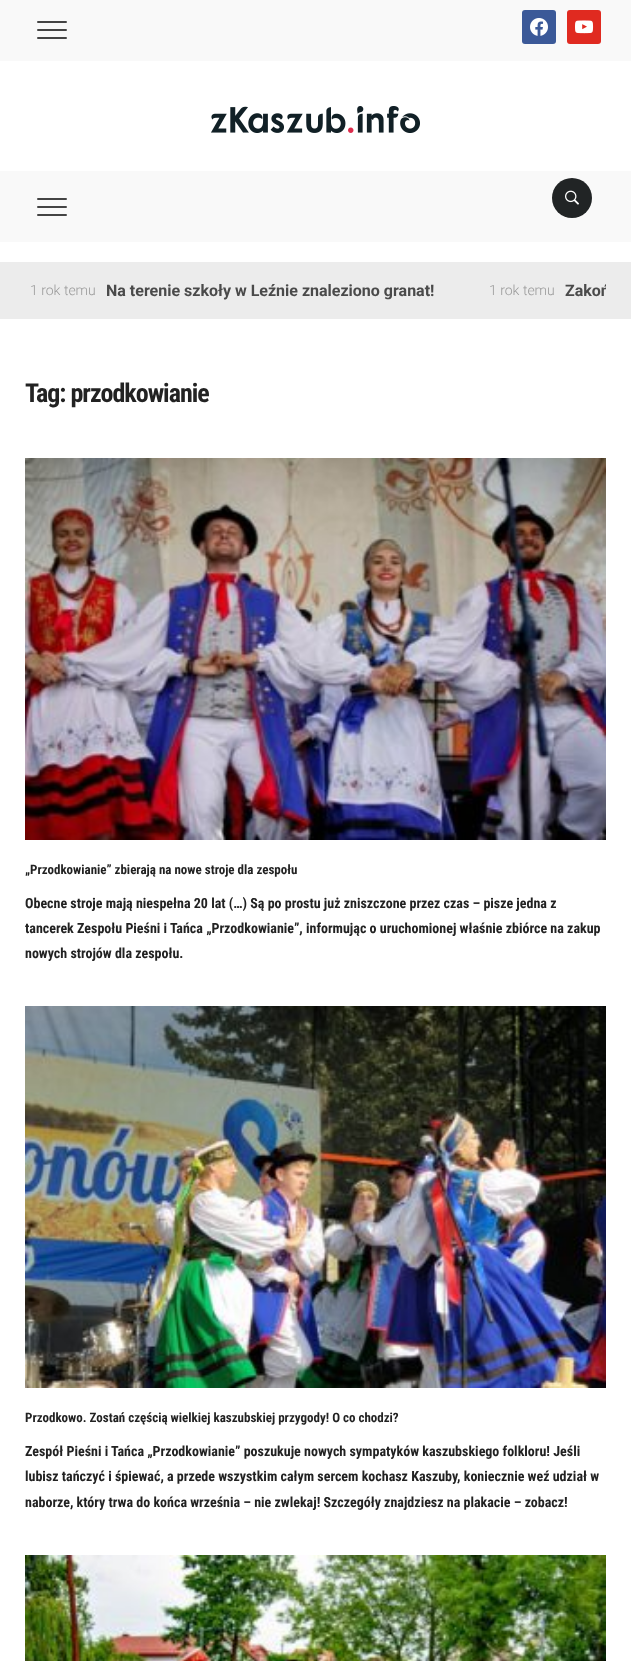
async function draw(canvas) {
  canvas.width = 631;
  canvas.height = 1661;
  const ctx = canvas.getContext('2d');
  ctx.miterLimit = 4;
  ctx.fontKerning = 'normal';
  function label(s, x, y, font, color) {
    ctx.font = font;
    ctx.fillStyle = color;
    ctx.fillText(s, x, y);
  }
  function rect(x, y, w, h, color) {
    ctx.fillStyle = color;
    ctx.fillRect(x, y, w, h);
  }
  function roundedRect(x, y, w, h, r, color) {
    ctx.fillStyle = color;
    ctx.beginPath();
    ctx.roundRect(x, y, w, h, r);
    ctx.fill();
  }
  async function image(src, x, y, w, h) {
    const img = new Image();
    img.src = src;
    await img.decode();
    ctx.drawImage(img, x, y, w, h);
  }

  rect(0, 0, 631, 1661, '#fff');
  rect(0, 0, 631, 61, '#f9f9f9');
  roundedRect(37, 21, 30, 2, 1, '#444');
  roundedRect(37, 29, 30, 2, 1, '#444');
  roundedRect(37, 37, 30, 2, 1, '#444');
  roundedRect(522, 10, 34, 34, 3, '#3b5998');
  await image('assets/img1.png', 530, 18, 18, 18);
  roundedRect(567, 10, 34, 34, 3, '#e02a20');
  await image('assets/img2.png', 575, 20, 19, 14);
  await image('assets/img3.png', 211, 106, 209, 27);
  rect(0, 171, 631, 71, '#f9f9f9');
  roundedRect(37, 198, 30, 2, 1, '#444');
  roundedRect(37, 206, 30, 2, 1, '#444');
  roundedRect(37, 214, 30, 2, 1, '#444');
  ctx.fillStyle = '#212425';
  ctx.beginPath();
  ctx.arc(572, 198, 20, 0, 2 * Math.PI);
  ctx.fill();
  await image('assets/img4.png', 565, 190, 14, 15);
  rect(0, 262, 631, 57, '#ececec');
  label('1 rok temu', 30, 295, '300 14px Roboto', '#999');
  label('Na terenie szkoły w Leźnie znaleziono granat!', 106, 296, 'bold 16px Roboto', '#4a4a4a');
  label('1 rok temu', 489, 295, '300 14px Roboto', '#999');
  ctx.save();
  ctx.beginPath();
  ctx.rect(25, 273, 581, 35);
  ctx.clip();
  label('Zakoń', 565, 296, 'bold 16px Roboto', '#4a4a4a');
  ctx.restore();
  ctx.letterSpacing = '-1px';
  label('Tag: przodkowianie', 25, 402, 'bold 26px Roboto Condensed', '#222');
  await image('assets/img5.png', 25, 458, 581, 382);
  ctx.letterSpacing = '0px';
  label('„Przodkowianie” zbierają na nowe stroje dla zespołu', 25, 874, 'bold 13px Roboto Condensed', '#222');
  label('Obecne stroje mają niespełna 20 lat (…) Są po prostu już zniszczone przez czas – pisze jedna z', 25, 908, 'bold 14px Roboto Condensed', '#222');
  label('tancerek Zespołu Pieśni i Tańca „Przodkowianie”, informując o uruchomionej właśnie zbiórce na zakup', 25, 933, 'bold 14px Roboto Condensed', '#222');
  label('nowych strojów dla zespołu.', 25, 958, 'bold 14px Roboto Condensed', '#222');
  await image('assets/img6.png', 25, 1006, 581, 382);
  label('Przodkowo. Zostań częścią wielkiej kaszubskiej przygody! O co chodzi?', 25, 1422, 'bold 13px Roboto Condensed', '#222');
  label('Zespół Pieśni i Tańca „Przodkowianie” poszukuje nowych sympatyków kaszubskiego folkloru! Jeśli', 25, 1456, 'bold 14px Roboto Condensed', '#222');
  label('lubisz tańczyć i śpiewać, a przede wszystkim całym sercem kochasz Kaszuby, koniecznie weź udział w', 25, 1481, 'bold 14px Roboto Condensed', '#222');
  label('naborze, który trwa do końca września – nie zwlekaj! Szczegóły znajdziesz na plakacie – zobacz!', 25, 1507, 'bold 14px Roboto Condensed', '#222');
  await image('assets/img7.png', 25, 1555, 581, 106);
}

draw(document.querySelector('canvas'));
